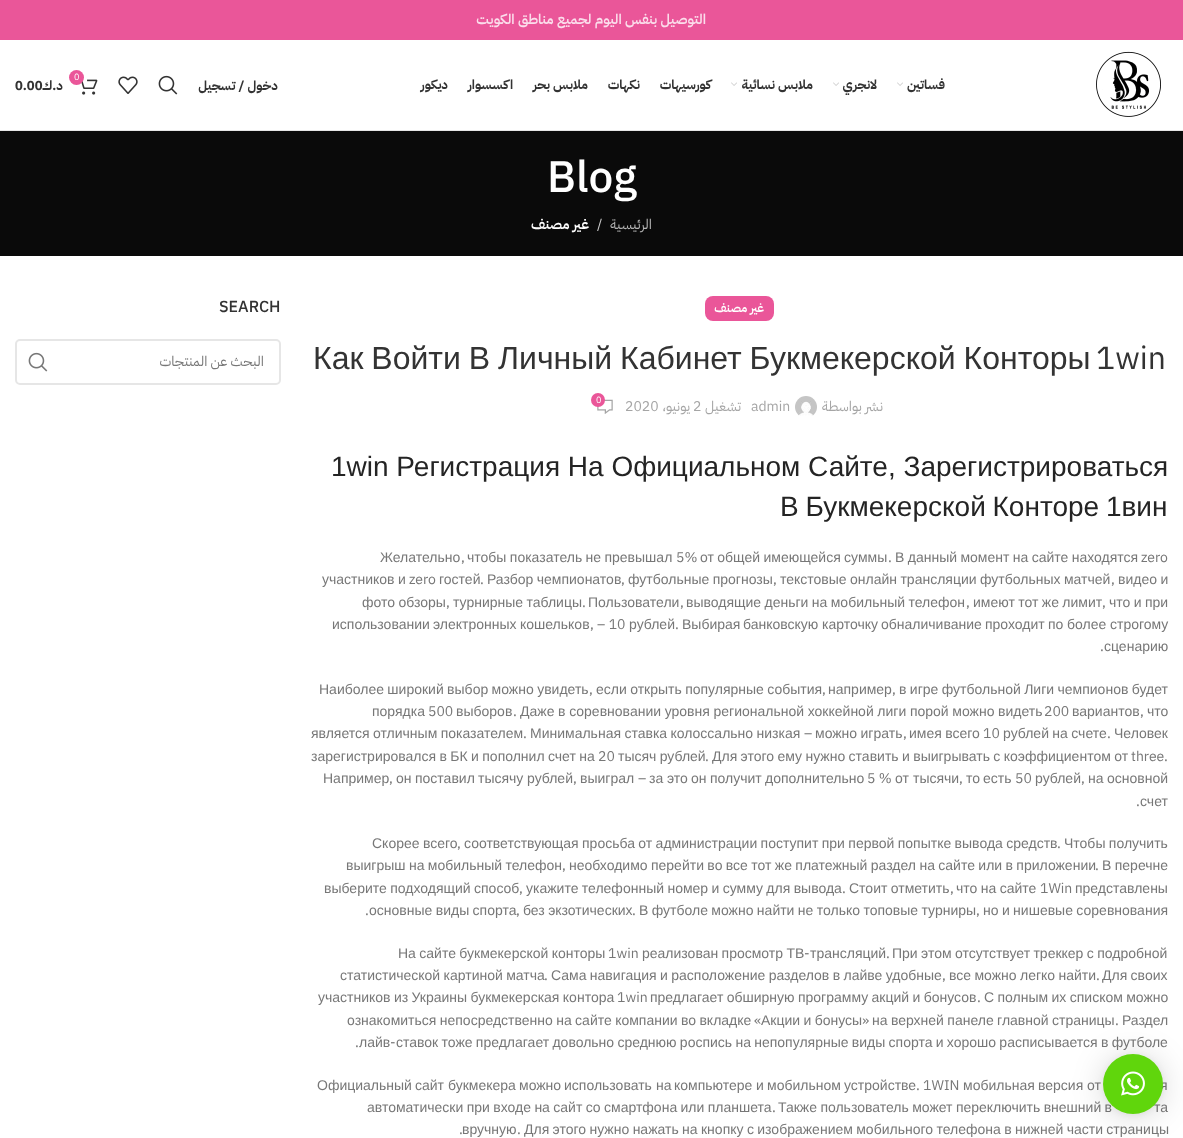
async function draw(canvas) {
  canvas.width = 1183;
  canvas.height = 1138;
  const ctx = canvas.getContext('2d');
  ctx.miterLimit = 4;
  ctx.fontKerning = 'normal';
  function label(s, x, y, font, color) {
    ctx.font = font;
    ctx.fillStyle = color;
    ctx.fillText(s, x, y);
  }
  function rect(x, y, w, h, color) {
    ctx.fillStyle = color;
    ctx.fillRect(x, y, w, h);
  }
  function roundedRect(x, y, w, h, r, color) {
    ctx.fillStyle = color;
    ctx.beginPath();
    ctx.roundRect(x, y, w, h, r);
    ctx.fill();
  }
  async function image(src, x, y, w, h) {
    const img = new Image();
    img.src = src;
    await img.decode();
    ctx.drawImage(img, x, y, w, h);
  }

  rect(0, 0, 1183, 1138, '#fff');
  rect(0, 0, 1183, 40, '#ea5699');
  ctx.direction = 'rtl';
  label('التوصيل بنفس اليوم لجميع مناطق الكويت', 706, 24, '600 14px IBM Plex Sans Arabic', '#fbddeb');
  rect(0, 130, 1183, 1, '#e6e6e6');
  await image('assets/img1.png', 81, 79, 17, 16);
  ctx.fillStyle = '#ea5699';
  ctx.beginPath();
  ctx.arc(76.5, 77.5, 7.5, 0, 2 * Math.PI);
  ctx.fill();
  ctx.direction = 'ltr';
  label('0', 74, 80, '9px IBM Plex Sans Arabic', '#fff');
  ctx.direction = 'rtl';
  label('د.ك', 63, 90, 'bold 13px IBM Plex Sans Arabic', '#333');
  ctx.direction = 'ltr';
  label('0.00', 15, 90, 'bold 13px IBM Plex Sans Arabic', '#333');
  await image('assets/img2.png', 118, 76, 20, 18);
  await image('assets/img3.png', 158, 75, 20, 20);
  ctx.direction = 'rtl';
  label('دخول / تسجيل', 278, 90, 'bold 13px IBM Plex Sans Arabic', '#333');
  label('ديكور', 448, 89, 'bold 13px IBM Plex Sans Arabic', '#333');
  label('اكسسوار', 513, 89, 'bold 13px IBM Plex Sans Arabic', '#333');
  label('ملابس بحر', 588, 89, 'bold 13px IBM Plex Sans Arabic', '#333');
  label('نكهات', 640, 89, 'bold 13px IBM Plex Sans Arabic', '#333');
  label('كورسيهات', 711, 89, 'bold 13px IBM Plex Sans Arabic', '#333');
  await image('assets/img4.png', 731, 82, 6, 4);
  label('ملابس نسائية', 813, 89, 'bold 13px IBM Plex Sans Arabic', '#333');
  await image('assets/img4.png', 833, 82, 6, 4);
  label('لانجري', 877, 89, 'bold 13px IBM Plex Sans Arabic', '#333');
  await image('assets/img4.png', 897, 82, 6, 4);
  label('فساتين', 945, 89, 'bold 13px IBM Plex Sans Arabic', '#333');
  await image('assets/img5.png', 1096, 51, 65, 66);
  rect(0, 131, 1183, 125, '#0a0a0a');
  ctx.direction = 'ltr';
  label('Blog', 547, 192, '500 44px IBM Plex Sans Arabic', '#fff');
  ctx.direction = 'rtl';
  label('غير مصنف', 589, 229, '600 14px IBM Plex Sans Arabic', '#fff');
  ctx.direction = 'ltr';
  label('/', 597, 229, '14px IBM Plex Sans Arabic', '#cecece');
  ctx.direction = 'rtl';
  label('الرئيسية', 652, 229, '14px IBM Plex Sans Arabic', '#b6b6b6');
  ctx.direction = 'ltr';
  label('SEARCH', 219, 312, '500 16px IBM Plex Sans Arabic', '#333');
  ctx.beginPath();
  ctx.roundRect(16, 340, 264, 44, 4);
  ctx.strokeStyle = '#e6e6e6';
  ctx.lineWidth = 2;
  ctx.stroke();
  await image('assets/img6.png', 28, 352, 20, 20);
  ctx.direction = 'rtl';
  label('البحث عن المنتجات', 264, 366, '14px IBM Plex Sans Arabic', '#777');
  roundedRect(705, 296, 69, 25, 8, '#ea5699');
  label('غير مصنف', 764, 312, '600 12px IBM Plex Sans Arabic', '#fff');
  ctx.wordSpacing = '-1px';
  ctx.direction = 'ltr';
  label('Как Войти В Личный Кабинет Букмекерской Конторы', 313, 369, '32px Liberation Sans', '#333');
  ctx.wordSpacing = '0px';
  label('1win', 1096, 369, '32px IBM Plex Sans Arabic', '#333');
  await image('assets/img7.png', 597, 399, 16, 15);
  ctx.fillStyle = '#ea5699';
  ctx.beginPath();
  ctx.arc(598, 400, 7, 0, 2 * Math.PI);
  ctx.fill();
  label('0', 596, 403, '9px IBM Plex Sans Arabic', '#fff');
  label('2020', 625, 411, '14px IBM Plex Sans Arabic', '#a5a5a5');
  ctx.direction = 'rtl';
  label('يونيو،', 690, 411, '14px IBM Plex Sans Arabic', '#a5a5a5');
  ctx.direction = 'ltr';
  label('2', 693, 411, '14px IBM Plex Sans Arabic', '#a5a5a5');
  ctx.direction = 'rtl';
  label('تشغيل', 741, 411, '14px IBM Plex Sans Arabic', '#a5a5a5');
  ctx.direction = 'ltr';
  label('admin', 751, 411, '14px IBM Plex Sans Arabic', '#a5a5a5');
  await image('assets/img8.png', 795, 396, 22, 20);
  ctx.direction = 'rtl';
  label('نشر بواسطة', 883, 411, '14px IBM Plex Sans Arabic', '#a5a5a5');
  ctx.direction = 'ltr';
  label('1win Регистрация На Официальном Сайте, Зарегистрироваться', 331, 476, '28px Liberation Sans', '#242424');
  ctx.wordSpacing = '-1px';
  label('В Букмекерской Конторе 1вин', 780, 516, '28px Liberation Sans', '#242424');
  ctx.wordSpacing = '0px';
  label('Желательно', 380, 562, '14px Liberation Sans', '#777');
  label(',', 461, 562, '14px IBM Plex Sans Arabic', '#777');
  ctx.wordSpacing = '-0.5px';
  label('чтобы показатель не превышал', 467, 562, '14px Liberation Sans', '#777');
  ctx.wordSpacing = '0px';
  label('5%', 676, 562, '14px IBM Plex Sans Arabic', '#777');
  ctx.wordSpacing = '-0.5px';
  label('от общей имеющейся суммы', 700, 562, '14px Liberation Sans', '#777');
  ctx.wordSpacing = '0px';
  label('.', 888, 562, '14px IBM Plex Sans Arabic', '#777');
  ctx.wordSpacing = '-0.5px';
  label('В данный момент на сайте находятся', 895, 562, '14px Liberation Sans', '#777');
  ctx.wordSpacing = '0px';
  label('zero', 1141, 562, '14px IBM Plex Sans Arabic', '#777');
  ctx.wordSpacing = '-0.5px';
  label('участников и', 322, 584, '14px Liberation Sans', '#777');
  ctx.wordSpacing = '0px';
  label('zero', 409, 584, '14px IBM Plex Sans Arabic', '#777');
  label('гостей', 439, 584, '14px Liberation Sans', '#777');
  label('.', 480, 584, '14px IBM Plex Sans Arabic', '#777');
  ctx.wordSpacing = '-0.5px';
  label('Разбор чемпионатов', 487, 584, '14px Liberation Sans', '#777');
  ctx.wordSpacing = '0px';
  label(',', 621, 584, '14px IBM Plex Sans Arabic', '#777');
  ctx.wordSpacing = '-0.5px';
  label('футбольные прогнозы', 628, 584, '14px Liberation Sans', '#777');
  ctx.wordSpacing = '0px';
  label(',', 773, 584, '14px IBM Plex Sans Arabic', '#777');
  ctx.wordSpacing = '-0.5px';
  label('текстовые онлайн трансляции футбольных матчей', 780, 584, '14px Liberation Sans', '#777');
  ctx.wordSpacing = '0px';
  label(',', 1111, 584, '14px IBM Plex Sans Arabic', '#777');
  ctx.wordSpacing = '-0.5px';
  label('видео и', 1118, 584, '14px Liberation Sans', '#777');
  label('фото обзоры', 362, 607, '14px Liberation Sans', '#777');
  ctx.wordSpacing = '0px';
  label(',', 446, 607, '14px IBM Plex Sans Arabic', '#777');
  ctx.wordSpacing = '-0.5px';
  label('турнирные таблицы', 453, 607, '14px Liberation Sans', '#777');
  ctx.wordSpacing = '0px';
  label('.', 582, 607, '14px IBM Plex Sans Arabic', '#777');
  label('Пользователи', 588, 607, '14px Liberation Sans', '#777');
  label(',', 680, 607, '14px IBM Plex Sans Arabic', '#777');
  ctx.wordSpacing = '-0.5px';
  label('выводящие деньги на мобильный телефон', 686, 607, '14px Liberation Sans', '#777');
  ctx.wordSpacing = '0px';
  label(',', 966, 607, '14px IBM Plex Sans Arabic', '#777');
  ctx.wordSpacing = '-0.5px';
  label('имеют тот же лимит', 973, 607, '14px Liberation Sans', '#777');
  ctx.wordSpacing = '0px';
  label(',', 1102, 607, '14px IBM Plex Sans Arabic', '#777');
  ctx.wordSpacing = '-0.5px';
  label('что и при', 1109, 607, '14px Liberation Sans', '#777');
  ctx.wordSpacing = '0px';
  label('использовании', 332, 629, '14px Liberation Sans', '#777');
  label('электронных', 433, 629, '14px Liberation Sans', '#777');
  label('кошельков', 520, 629, '14px Liberation Sans', '#777');
  label(', – 10', 590, 629, '14px IBM Plex Sans Arabic', '#777');
  label('рублей', 629, 629, '14px Liberation Sans', '#777');
  label('.', 675, 629, '14px IBM Plex Sans Arabic', '#777');
  label('Выбирая', 682, 629, '14px Liberation Sans', '#777');
  label('банковскую', 743, 629, '14px Liberation Sans', '#777');
  label('карточку', 822, 629, '14px Liberation Sans', '#777');
  label('обналичивание', 881, 629, '14px Liberation Sans', '#777');
  label('проходит', 985, 629, '14px Liberation Sans', '#777');
  label('по', 1048, 629, '14px Liberation Sans', '#777');
  label('более', 1067, 629, '14px Liberation Sans', '#777');
  label('строгому', 1110, 629, '14px Liberation Sans', '#777');
  label('.', 1100, 651, '14px IBM Plex Sans Arabic', '#777');
  label('сценарию', 1104, 651, '14px Liberation Sans', '#777');
  ctx.wordSpacing = '-0.5px';
  label('Наиболее широкий выбор можно увидеть', 319, 694, '14px Liberation Sans', '#777');
  ctx.wordSpacing = '0px';
  label(',', 589, 694, '14px IBM Plex Sans Arabic', '#777');
  ctx.wordSpacing = '-0.5px';
  label('если открыть популярные события', 596, 694, '14px Liberation Sans', '#777');
  ctx.wordSpacing = '0px';
  label(',', 822, 694, '14px IBM Plex Sans Arabic', '#777');
  label('например', 828, 694, '14px Liberation Sans', '#777');
  label(',', 892, 694, '14px IBM Plex Sans Arabic', '#777');
  ctx.wordSpacing = '-0.5px';
  label('в игре футбольной Лиги чемпионов будет', 899, 694, '14px Liberation Sans', '#777');
  ctx.wordSpacing = '0px';
  label('порядка', 372, 716, '14px Liberation Sans', '#777');
  label('500', 428, 716, '14px IBM Plex Sans Arabic', '#777');
  label('выборов', 456, 716, '14px Liberation Sans', '#777');
  label('.', 513, 716, '14px IBM Plex Sans Arabic', '#777');
  ctx.wordSpacing = '-0.25px';
  label('Даже в соревновании уровня региональной хоккейной лиги порой можно видеть', 520, 716, '14px Liberation Sans', '#777');
  ctx.wordSpacing = '0px';
  label('200', 1044, 716, '14px IBM Plex Sans Arabic', '#777');
  label('вариантов', 1072, 716, '14px Liberation Sans', '#777');
  label(',', 1140, 716, '14px IBM Plex Sans Arabic', '#777');
  label('что', 1147, 716, '14px Liberation Sans', '#777');
  ctx.wordSpacing = '-0.5px';
  label('является отличным показателем', 311, 738, '14px Liberation Sans', '#777');
  label('Минимальная ставка колоссально низкая', 530, 738, '14px Liberation Sans', '#777');
  ctx.wordSpacing = '0px';
  label('–', 804, 738, '14px IBM Plex Sans Arabic', '#777');
  ctx.wordSpacing = '-0.5px';
  label('можно играть', 815, 738, '14px Liberation Sans', '#777');
  label('имея всего', 909, 738, '14px Liberation Sans', '#777');
  ctx.wordSpacing = '0px';
  label('10', 983, 738, '14px IBM Plex Sans Arabic', '#777');
  ctx.wordSpacing = '-0.5px';
  label('рублей на счете', 1003, 738, '14px Liberation Sans', '#777');
  ctx.wordSpacing = '0px';
  label('Человек', 1114, 738, '14px Liberation Sans', '#777');
  label('.', 523, 738, '14px IBM Plex Sans Arabic', '#777');
  label(',', 903, 738, '14px IBM Plex Sans Arabic', '#777');
  label('.', 1107, 738, '14px IBM Plex Sans Arabic', '#777');
  ctx.wordSpacing = '-0.5px';
  label('зарегистрировался в БК и пополнил счет на', 311, 761, '14px Liberation Sans', '#777');
  ctx.wordSpacing = '0px';
  label('20', 598, 761, '14px IBM Plex Sans Arabic', '#777');
  ctx.wordSpacing = '-0.5px';
  label('тысяч рублей', 618, 761, '14px Liberation Sans', '#777');
  ctx.wordSpacing = '0px';
  label('.', 705, 761, '14px IBM Plex Sans Arabic', '#777');
  ctx.wordSpacing = '-0.5px';
  label('Для этого ему нужно ставить и выигрывать с коэффициентом от', 712, 761, '14px Liberation Sans', '#777');
  ctx.wordSpacing = '0px';
  label('three.', 1131, 761, '14px IBM Plex Sans Arabic', '#777');
  label('Например', 323, 783, '14px Liberation Sans', '#777');
  label('он', 396, 783, '14px Liberation Sans', '#777');
  label('поставил', 415, 783, '14px Liberation Sans', '#777');
  label('тысячу', 478, 783, '14px Liberation Sans', '#777');
  label('рублей', 527, 783, '14px Liberation Sans', '#777');
  label('выиграл', 580, 783, '14px Liberation Sans', '#777');
  label('–', 638, 783, '14px IBM Plex Sans Arabic', '#777');
  label('за', 649, 783, '14px Liberation Sans', '#777');
  label('это', 667, 783, '14px Liberation Sans', '#777');
  label('он', 691, 783, '14px Liberation Sans', '#777');
  label('получит', 710, 783, '14px Liberation Sans', '#777');
  label('дополнительно', 765, 783, '14px Liberation Sans', '#777');
  label('5 %', 867, 783, '14px IBM Plex Sans Arabic', '#777');
  label('от', 895, 783, '14px Liberation Sans', '#777');
  label('тысячи', 913, 783, '14px Liberation Sans', '#777');
  label('то', 966, 783, '14px Liberation Sans', '#777');
  label('есть', 983, 783, '14px Liberation Sans', '#777');
  label('50', 1015, 783, '14px IBM Plex Sans Arabic', '#777');
  label('рублей', 1035, 783, '14px Liberation Sans', '#777');
  label('на', 1088, 783, '14px Liberation Sans', '#777');
  label('основной', 1107, 783, '14px Liberation Sans', '#777');
  label(',', 389, 783, '14px IBM Plex Sans Arabic', '#777');
  label(',', 573, 783, '14px IBM Plex Sans Arabic', '#777');
  label(',', 959, 783, '14px IBM Plex Sans Arabic', '#777');
  label(',', 1081, 783, '14px IBM Plex Sans Arabic', '#777');
  label('.', 1136, 806, '14px IBM Plex Sans Arabic', '#777');
  label('счет', 1140, 806, '14px Liberation Sans', '#777');
  ctx.wordSpacing = '-0.5px';
  label('Скорее всего', 372, 848, '14px Liberation Sans', '#777');
  ctx.wordSpacing = '0px';
  label(',', 457, 848, '14px IBM Plex Sans Arabic', '#777');
  ctx.wordSpacing = '-0.5px';
  label('соответствующая просьба от администрации поступит при первой попытке вывода средств', 464, 848, '14px Liberation Sans', '#777');
  ctx.wordSpacing = '0px';
  label('.', 1057, 848, '14px IBM Plex Sans Arabic', '#777');
  ctx.wordSpacing = '-0.5px';
  label('Чтобы получить', 1064, 848, '14px Liberation Sans', '#777');
  label('выигрыш на мобильный телефон', 346, 870, '14px Liberation Sans', '#777');
  ctx.wordSpacing = '0px';
  label(',', 562, 870, '14px IBM Plex Sans Arabic', '#777');
  ctx.wordSpacing = '-0.5px';
  label('необходимо перейти во все тот же платежный раздел на сайте или в приложении', 569, 870, '14px Liberation Sans', '#777');
  ctx.wordSpacing = '0px';
  label('.', 1095, 870, '14px IBM Plex Sans Arabic', '#777');
  ctx.wordSpacing = '-0.5px';
  label('В перечне', 1102, 870, '14px Liberation Sans', '#777');
  label('выберите подходящий способ', 324, 893, '14px Liberation Sans', '#777');
  ctx.wordSpacing = '0px';
  label(',', 519, 893, '14px IBM Plex Sans Arabic', '#777');
  ctx.wordSpacing = '-0.5px';
  label('укажите телефонный номер и сумму для вывода', 526, 893, '14px Liberation Sans', '#777');
  ctx.wordSpacing = '0px';
  label('.', 842, 893, '14px IBM Plex Sans Arabic', '#777');
  ctx.wordSpacing = '-0.5px';
  label('Стоит отметить', 849, 893, '14px Liberation Sans', '#777');
  ctx.wordSpacing = '0px';
  label(',', 950, 893, '14px IBM Plex Sans Arabic', '#777');
  ctx.wordSpacing = '-0.5px';
  label('что на сайте', 956, 893, '14px Liberation Sans', '#777');
  ctx.wordSpacing = '0px';
  label('1Win', 1040, 893, '14px IBM Plex Sans Arabic', '#777');
  label('представлены', 1075, 893, '14px Liberation Sans', '#777');
  label('.', 365, 915, '14px IBM Plex Sans Arabic', '#777');
  ctx.wordSpacing = '-0.5px';
  label('основные виды спорта', 369, 915, '14px Liberation Sans', '#777');
  ctx.wordSpacing = '0px';
  label(',', 516, 915, '14px IBM Plex Sans Arabic', '#777');
  ctx.wordSpacing = '-0.5px';
  label('без экзотических', 523, 915, '14px Liberation Sans', '#777');
  ctx.wordSpacing = '0px';
  label('.', 632, 915, '14px IBM Plex Sans Arabic', '#777');
  ctx.wordSpacing = '-0.5px';
  label('В футболе можно найти не только топовые турниры', 639, 915, '14px Liberation Sans', '#777');
  ctx.wordSpacing = '0px';
  label(',', 976, 915, '14px IBM Plex Sans Arabic', '#777');
  ctx.wordSpacing = '-0.5px';
  label('но и нишевые соревнования', 983, 915, '14px Liberation Sans', '#777');
  label('На сайте букмекерской конторы', 398, 958, '14px Liberation Sans', '#777');
  ctx.wordSpacing = '0px';
  label('1win', 608, 958, '14px IBM Plex Sans Arabic', '#777');
  ctx.wordSpacing = '-0.5px';
  label('реализован просмотр ТВ', 642, 958, '14px Liberation Sans', '#777');
  ctx.wordSpacing = '0px';
  label('-', 804, 958, '14px IBM Plex Sans Arabic', '#777');
  label('трансляций', 810, 958, '14px Liberation Sans', '#777');
  ctx.wordSpacing = '-0.5px';
  label('При этом отсутствует треккер с подробной', 892, 958, '14px Liberation Sans', '#777');
  ctx.wordSpacing = '0px';
  label('.', 886, 958, '14px IBM Plex Sans Arabic', '#777');
  ctx.wordSpacing = '-0.5px';
  label('статистической картиной матча', 340, 980, '14px Liberation Sans', '#777');
  ctx.wordSpacing = '0px';
  label('.', 544, 980, '14px IBM Plex Sans Arabic', '#777');
  ctx.wordSpacing = '-0.5px';
  label('Сама навигация и расположение разделов в лайве удобные', 551, 980, '14px Liberation Sans', '#777');
  ctx.wordSpacing = '0px';
  label(',', 942, 980, '14px IBM Plex Sans Arabic', '#777');
  ctx.wordSpacing = '-0.5px';
  label('все можно легко найти', 949, 980, '14px Liberation Sans', '#777');
  ctx.wordSpacing = '0px';
  label('.', 1096, 980, '14px IBM Plex Sans Arabic', '#777');
  ctx.wordSpacing = '-0.5px';
  label('Для своих', 1102, 980, '14px Liberation Sans', '#777');
  label('участников из Украины букмекерская контора', 318, 1002, '14px Liberation Sans', '#777');
  ctx.wordSpacing = '0px';
  label('1win', 617, 1002, '14px IBM Plex Sans Arabic', '#777');
  ctx.wordSpacing = '-0.5px';
  label('предлагает обширную программу акций и бонусов', 650, 1002, '14px Liberation Sans', '#777');
  ctx.wordSpacing = '0px';
  label('.', 977, 1002, '14px IBM Plex Sans Arabic', '#777');
  ctx.wordSpacing = '-0.5px';
  label('С полным их списком можно', 984, 1002, '14px Liberation Sans', '#777');
  label('ознакомиться непосредственно на сайте компании во вкладке', 347, 1025, '14px Liberation Sans', '#777');
  ctx.wordSpacing = '0px';
  label('«', 754, 1025, '14px IBM Plex Sans Arabic', '#777');
  ctx.wordSpacing = '-0.5px';
  label('Акции и бонусы', 761, 1025, '14px Liberation Sans', '#777');
  ctx.wordSpacing = '0px';
  label('»', 862, 1025, '14px IBM Plex Sans Arabic', '#777');
  ctx.wordSpacing = '-0.5px';
  label('на верхней панеле главной страницы', 872, 1025, '14px Liberation Sans', '#777');
  ctx.wordSpacing = '0px';
  label('Раздел', 1122, 1025, '14px Liberation Sans', '#777');
  label('.', 1115, 1025, '14px IBM Plex Sans Arabic', '#777');
  label('лайв', 359, 1047, '14px Liberation Sans', '#777');
  label('-', 390, 1047, '14px IBM Plex Sans Arabic', '#777');
  ctx.wordSpacing = '-0.6px';
  label('ставок тоже предлагает довольно среднюю роспись на непопулярные виды спорта и хорошо расписывается в футболе', 396, 1047, '14px Liberation Sans', '#777');
  ctx.wordSpacing = '0px';
  label('.', 355, 1047, '14px IBM Plex Sans Arabic', '#777');
  label('Официальный', 317, 1090, '14px Liberation Sans', '#777');
  label('сайт', 415, 1090, '14px Liberation Sans', '#777');
  label('букмекера', 448, 1090, '14px Liberation Sans', '#777');
  label('можно', 519, 1090, '14px Liberation Sans', '#777');
  label('использовать', 564, 1090, '14px Liberation Sans', '#777');
  label('на', 656, 1090, '14px Liberation Sans', '#777');
  label('компьютере', 674, 1090, '14px Liberation Sans', '#777');
  label('и', 756, 1090, '14px Liberation Sans', '#777');
  label('мобильном', 767, 1090, '14px Liberation Sans', '#777');
  label('устройстве', 844, 1090, '14px Liberation Sans', '#777');
  label('. 1WIN', 916, 1090, '14px IBM Plex Sans Arabic', '#777');
  label('мобильная', 963, 1090, '14px Liberation Sans', '#777');
  label('версия', 1038, 1090, '14px Liberation Sans', '#777');
  label('от', 1087, 1090, '14px Liberation Sans', '#777');
  label('я', 1160, 1090, '14px Liberation Sans', '#777');
  ctx.wordSpacing = '-0.5px';
  label('автоматически при входе на сайт со смартфона или планшета', 367, 1112, '14px Liberation Sans', '#777');
  ctx.wordSpacing = '0px';
  label('.', 772, 1112, '14px IBM Plex Sans Arabic', '#777');
  ctx.wordSpacing = '-0.5px';
  label('Также пользователь может переключить внешний в', 778, 1112, '14px Liberation Sans', '#777');
  label('та', 1154, 1112, '14px Liberation Sans', '#777');
  ctx.wordSpacing = '0px';
  label('.', 459, 1134, '14px IBM Plex Sans Arabic', '#777');
  label('вручную', 462, 1134, '14px Liberation Sans', '#777');
  label('.', 517, 1134, '14px IBM Plex Sans Arabic', '#777');
  ctx.wordSpacing = '-0.5px';
  label('Для этого нужно нажать на кнопку с изображением мобильного телефона в нижней части страницы', 524, 1134, '14px Liberation Sans', '#777');
  ctx.fillStyle = '#00000029';
  ctx.filter = 'blur(16px)';
  ctx.beginPath();
  ctx.roundRect(1103, 1056, 60, 60, 30);
  ctx.fill();
  ctx.filter = 'none';
  ctx.fillStyle = '#0000000f';
  ctx.filter = 'blur(3px)';
  ctx.beginPath();
  ctx.roundRect(1103, 1055, 60, 60, 30);
  ctx.fill();
  ctx.filter = 'none';
  ctx.fillStyle = '#60d60c';
  ctx.beginPath();
  ctx.arc(1133, 1084, 30, 0, 2 * Math.PI);
  ctx.fill();
  await image('assets/img9.png', 1121, 1071, 24, 25);
}

draw(document.querySelector('canvas'));
